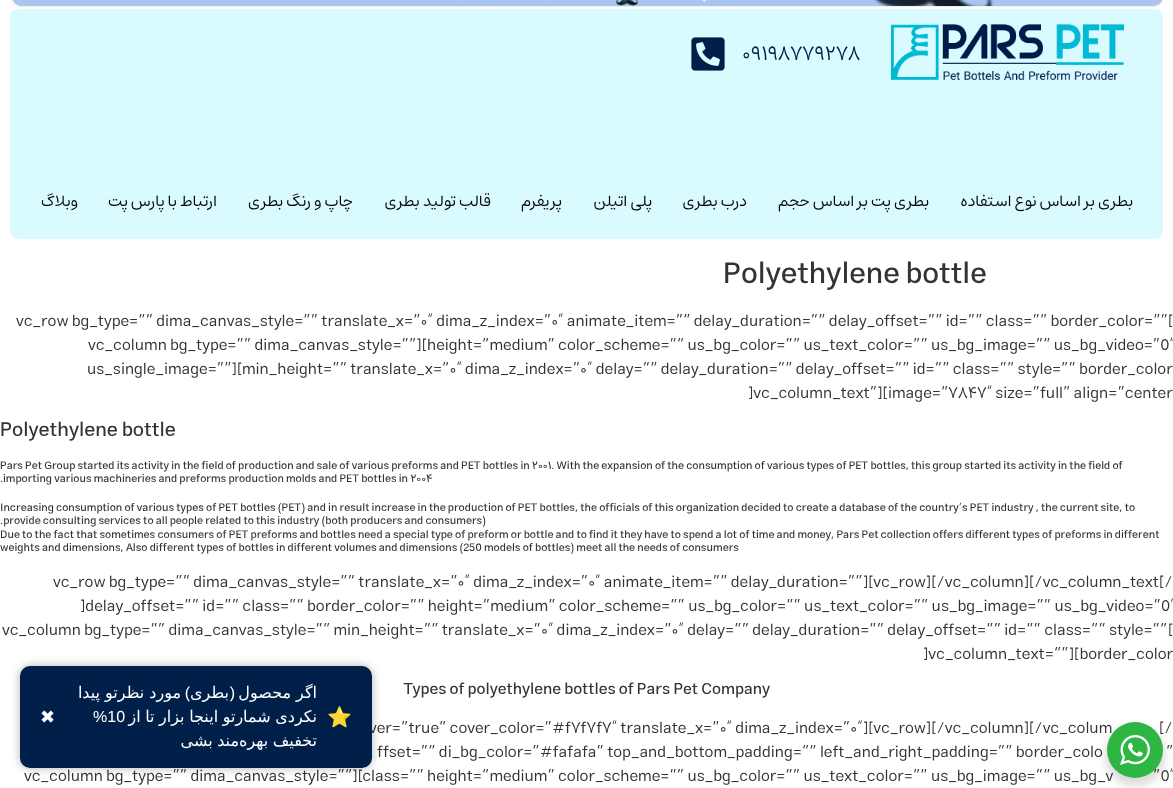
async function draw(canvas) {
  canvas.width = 1173;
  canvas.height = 788;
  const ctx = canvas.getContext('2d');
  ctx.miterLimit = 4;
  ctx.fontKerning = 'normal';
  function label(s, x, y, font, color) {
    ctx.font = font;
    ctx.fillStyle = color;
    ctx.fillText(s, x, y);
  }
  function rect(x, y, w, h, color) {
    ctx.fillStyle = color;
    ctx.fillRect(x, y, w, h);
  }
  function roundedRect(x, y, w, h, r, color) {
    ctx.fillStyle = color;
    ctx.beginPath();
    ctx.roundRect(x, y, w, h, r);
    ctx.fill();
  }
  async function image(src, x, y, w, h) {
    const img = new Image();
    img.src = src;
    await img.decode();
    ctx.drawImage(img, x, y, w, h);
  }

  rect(0, 0, 1173, 788, '#fff');
  ctx.beginPath();
  ctx.roundRect(10.5, -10.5, 1152, 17, 9.5);
  ctx.strokeStyle = '#efeeee';
  ctx.stroke();
  await image('assets/img1.png', 12, 0, 1151, 6);
  roundedRect(10, 9, 1153, 230, 8, '#d9faff');
  await image('assets/img2.png', 691, 37, 34, 34);
  label('09198779278', 742, 60, '20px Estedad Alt', '#00204a');
  await image('assets/img3.png', 891, 24, 233, 56);
  ctx.direction = 'rtl';
  label('وبلاگ', 78, 206, '16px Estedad', '#000');
  label('ارتباط با پارس پت', 217, 206, '16px Estedad', '#000');
  label('چاپ و رنگ بطری', 353, 206, '16px Estedad', '#000');
  label('قالب تولید بطری', 491, 206, '16px Estedad', '#000');
  label('پریفرم', 562, 206, '16px Estedad', '#000');
  label('پلی اتیلن', 652, 206, '16px Estedad', '#000');
  label('درب بطری', 747, 206, '16px Estedad', '#000');
  label('بطری پت بر اساس حجم', 929, 206, '16px Estedad', '#000');
  label('بطری بر اساس نوع استفاده', 1133, 206, '16px Estedad', '#000');
  ctx.direction = 'ltr';
  label('Polyethylene bottle', 723, 283, '500 30px Estedad', '#333');
  label('vc_row bg_type=”” dima_canvas_style=”” translate_x=”0″ dima_z_index=”0″ animate_item=”” delay_duration=”” delay_offset=”” id=”” class=”” border_color=””', 16, 326, '16px Estedad Alt', '#333');
  label('[', 1168, 326, '16px Estedad', '#333');
  label('vc_column bg_type=”” dima_canvas_style=””][height=”medium” color_scheme=”” us_bg_color=”” us_text_color=”” us_bg_image=”” us_bg_video=”0″', 88, 350, '16px Estedad', '#333');
  label('us_single_image=””][', 87, 374, '16px Estedad', '#333');
  label('min_height=”” translate_x=”0″ dima_z_index=”0″ delay=”” delay_duration=”” delay_offset=”” id=”” class=”” style=”” border_color', 242, 374, '16px Estedad Alt', '#333');
  label(']vc_column_text”][', 748, 398, '16px Estedad', '#333');
  label('image=”7847″ size=”full” align=”center', 888, 398, '16px Estedad Alt', '#333');
  label('Polyethylene bottle', 0, 436, '500 20px Estedad', '#333');
  label('Pars Pet Group started its activity in the field of production and sale of various preforms and PET bottles in 2001. With the expansion of the consumption of various types of PET bottles, this group started its activity in the field of', 0, 469, '500 11px Estedad Alt', '#333');
  label('.', 0, 482, '500 11px Estedad', '#333');
  label('importing various machineries and preforms production molds and PET bottles in 2004', 3, 482, '500 11px Estedad Alt', '#333');
  label('Increasing consumption of various types of PET bottles (PET) and in result increase in the production of PET bottles, the officials of this organization decided to create a database of the country’s PET industry , the current site, to', 0, 511, '500 11px Estedad', '#333');
  label('.provide consulting services to all people related to this industry (both producers and consumers)', 0, 524, '500 11px Estedad', '#333');
  label('Due to the fact that sometimes consumers of PET preforms and bottles need a special type of preform or bottle and to find it they have to spend a lot of time and money, Pars Pet collection offers different types of preforms in different', 0, 538, '500 11px Estedad', '#333');
  label('weights and dimensions, Also different types of bottles in different volumes and dimensions (250 models of bottles) meet all the needs of consumers', 0, 551, '500 11px Estedad', '#333');
  label('vc_row bg_type=”” dima_canvas_style=”” translate_x=”0″ dima_z_index=”0″ animate_item=”” delay_duration=””', 53, 587, '16px Estedad Alt', '#333');
  label('][vc_row][/vc_column][/vc_column_text[/', 863, 587, '16px Estedad', '#333');
  label(']delay_offset=”” id=”” class=”” border_color=”” height=”medium” color_scheme=”” us_bg_color=”” us_text_color=”” us_bg_image=”” us_bg_video=”0″', 80, 611, '16px Estedad', '#333');
  label('vc_column bg_type=”” dima_canvas_style=”” min_height=”” translate_x=”0″ dima_z_index=”0″ delay=”” delay_duration=”” delay_offset=”” id=”” class=”” style=””', 2, 635, '16px Estedad Alt', '#333');
  label('[', 1168, 635, '16px Estedad', '#333');
  label(']vc_column_text=””][border_color', 923, 659, '16px Estedad', '#333');
  label('Types of polyethylene bottles of Pars Pet Company', 403, 694, '500 16px Estedad', '#333');
  label('ver=”true” cover_color=”#f7f7f7″ translate_x=”0″ dima_z_index=”0″', 369, 733, '16px Estedad Alt', '#333');
  label('][vc_row][/vc_column][/vc_colum', 863, 733, '16px Estedad', '#333');
  label('[/', 1159, 733, '16px Estedad', '#333');
  label('ffset=”” di_bg_color=”#fafafa” top_and_bottom_padding=”” left_and_right_padding=”” border_colo', 377, 757, '16px Estedad', '#333');
  label('”', 1166, 757, '16px Estedad', '#333');
  label('vc_column bg_type=”” dima_canvas_style=””][class=”” height=”medium” color_scheme=”” us_bg_color=”” us_text_color=”” us_bg_image=”” us_bg_v', 24, 781, '16px Estedad', '#333');
  label('”0″', 1153, 781, '16px Estedad', '#333');
  ctx.fillStyle = '#0000004d';
  ctx.filter = 'blur(5px)';
  ctx.beginPath();
  ctx.roundRect(20, 666, 352, 102, 10);
  ctx.fill();
  ctx.filter = 'none';
  roundedRect(20, 666, 352, 102, 10, '#00204a');
  label('✖', 40, 723, '18px DejaVu Sans', '#fff');
  ctx.direction = 'rtl';
  label('مورد نظرتو پیدا', 181, 698, '16px DejaVu Sans', '#fff');
  label(')', 190, 698, '16px Liberation Sans', '#fff');
  label('بطری', 229, 698, '16px DejaVu Sans', '#fff');
  label('(', 235, 698, '16px Liberation Sans', '#fff');
  label('اگر محصول', 317, 698, '16px DejaVu Sans', '#fff');
  ctx.direction = 'ltr';
  label('%10', 93, 722, '16px Liberation Sans', '#fff');
  ctx.wordSpacing = '-0.5px';
  ctx.direction = 'rtl';
  label('نکردی شمارتو اینجا بزار تا از', 317, 722, '16px DejaVu Sans', '#fff');
  label('مند بشی', 239, 746, '16px DejaVu Sans', '#fff');
  label('تخفیف بهره', 317, 746, '16px DejaVu Sans', '#fff');
  ctx.wordSpacing = '0px';
  ctx.direction = 'ltr';
  label('⭐', 327, 724, '20px Noto Color Emoji', '#fff');
  ctx.fillStyle = '#00000024';
  ctx.filter = 'blur(4px)';
  ctx.beginPath();
  ctx.roundRect(1105, 726, 60, 60, 30);
  ctx.fill();
  ctx.filter = 'none';
  ctx.fillStyle = '#2db742';
  ctx.beginPath();
  ctx.arc(1135, 750, 28, 0, 2 * Math.PI);
  ctx.fill();
  await image('assets/img4.png', 1120, 735, 30, 30);
}

draw(document.querySelector('canvas'));
